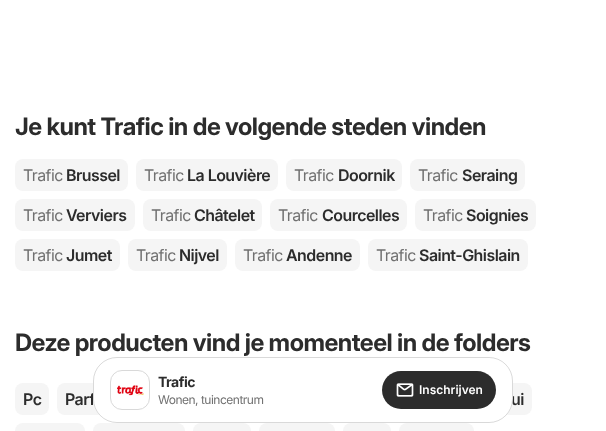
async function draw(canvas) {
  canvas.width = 606;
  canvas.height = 431;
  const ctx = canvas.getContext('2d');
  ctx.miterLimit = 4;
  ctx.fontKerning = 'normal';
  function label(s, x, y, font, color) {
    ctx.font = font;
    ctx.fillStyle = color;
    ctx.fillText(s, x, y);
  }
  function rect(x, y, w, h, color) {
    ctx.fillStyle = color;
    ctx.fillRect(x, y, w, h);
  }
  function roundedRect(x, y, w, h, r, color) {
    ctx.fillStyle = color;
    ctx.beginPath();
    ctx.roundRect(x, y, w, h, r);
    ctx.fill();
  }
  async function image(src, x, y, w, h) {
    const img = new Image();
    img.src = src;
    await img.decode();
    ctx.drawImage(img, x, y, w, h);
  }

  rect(0, 0, 606, 431, '#fff');
  ctx.letterSpacing = '-0.5px';
  label('Je kunt Trafic in de volgende steden vinden', 15, 135, 'bold 24px Inter', '#2c2c2c');
  roundedRect(15, 159, 113, 32, 8, '#f5f5f5');
  label('Trafic', 23, 181, '16px Inter', '#707070');
  label('Brussel', 66, 181, '600 16px Inter', '#2c2c2c');
  roundedRect(136, 159, 142, 32, 8, '#f5f5f5');
  label('Trafic', 144, 181, '16px Inter', '#707070');
  label('La Louvière', 187, 181, '600 16px Inter', '#2c2c2c');
  roundedRect(286, 159, 116, 32, 8, '#f5f5f5');
  label('Trafic', 294, 181, '16px Inter', '#707070');
  label('Doornik', 338, 181, '600 16px Inter', '#2c2c2c');
  roundedRect(410, 159, 115, 32, 8, '#f5f5f5');
  label('Trafic', 418, 181, '16px Inter', '#707070');
  label('Seraing', 462, 181, '600 16px Inter', '#2c2c2c');
  roundedRect(15, 199, 120, 32, 8, '#f5f5f5');
  label('Trafic', 23, 221, '16px Inter', '#707070');
  label('Verviers', 66, 221, '600 16px Inter', '#2c2c2c');
  roundedRect(143, 199, 119, 32, 8, '#f5f5f5');
  label('Trafic', 151, 221, '16px Inter', '#707070');
  label('Châtelet', 194, 221, '600 16px Inter', '#2c2c2c');
  roundedRect(270, 199, 137, 32, 8, '#f5f5f5');
  label('Trafic', 278, 221, '16px Inter', '#707070');
  label('Courcelles', 322, 221, '600 16px Inter', '#2c2c2c');
  roundedRect(415, 199, 121, 32, 8, '#f5f5f5');
  label('Trafic', 423, 221, '16px Inter', '#707070');
  label('Soignies', 466, 221, '600 16px Inter', '#2c2c2c');
  roundedRect(15, 239, 105, 32, 8, '#f5f5f5');
  label('Trafic', 23, 261, '16px Inter', '#707070');
  label('Jumet', 66, 261, '600 16px Inter', '#2c2c2c');
  roundedRect(128, 239, 99, 32, 8, '#f5f5f5');
  label('Trafic', 136, 261, '16px Inter', '#707070');
  label('Nijvel', 179, 261, '600 16px Inter', '#2c2c2c');
  roundedRect(235, 239, 125, 32, 8, '#f5f5f5');
  label('Trafic', 243, 261, '16px Inter', '#707070');
  label('Andenne', 286, 261, '600 16px Inter', '#2c2c2c');
  roundedRect(368, 239, 160, 32, 8, '#f5f5f5');
  label('Trafic', 376, 261, '16px Inter', '#707070');
  label('Saint-Ghislain', 419, 261, '600 16px Inter', '#2c2c2c');
  label('Deze producten vind je momenteel in de folders', 15, 351, 'bold 24px Inter', '#2c2c2c');
  roundedRect(15, 383, 34, 32, 8, '#f5f5f5');
  label('Pc', 23, 405, '600 16px Inter', '#2c2c2c');
  roundedRect(57, 383, 69, 32, 8, '#f5f5f5');
  label('Parf', 65, 405, '600 16px Inter', '#2c2c2c');
  roundedRect(488, 383, 44, 32, 8, '#f5f5f5');
  label('ui', 511, 405, '600 16px Inter', '#2c2c2c');
  roundedRect(15, 423, 70, 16, 8, '#f5f5f5');
  roundedRect(93, 423, 92, 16, 8, '#f5f5f5');
  roundedRect(193, 423, 58, 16, 8, '#f5f5f5');
  roundedRect(259, 423, 76, 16, 8, '#f5f5f5');
  roundedRect(343, 423, 48, 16, 8, '#f5f5f5');
  roundedRect(399, 423, 75, 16, 8, '#f5f5f5');
  roundedRect(93, 357, 420, 66, 24, '#fff');
  ctx.beginPath();
  ctx.roundRect(93.5, 357.5, 419, 65, 23.5);
  ctx.strokeStyle = '#00000026';
  ctx.stroke();
  ctx.beginPath();
  ctx.roundRect(110.5, 370.5, 39, 39, 11.5);
  ctx.strokeStyle = '#d9d9d9';
  ctx.stroke();
  await image('assets/img1.png', 117, 385, 27, 11);
  label('Trafic', 158, 387, 'bold 14px "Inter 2"', '#2c2c2c');
  label('Wonen, tuincentrum', 158, 404, '12px "Inter 2"', '#707070');
  roundedRect(382, 371, 114, 38, 19, '#2c2c2c');
  await image('assets/img2.png', 396, 383, 18, 14);
  ctx.letterSpacing = '0px';
  label('Inschrijven', 419, 394, '600 12px "Inter 2"', '#fff');
}

draw(document.querySelector('canvas'));
